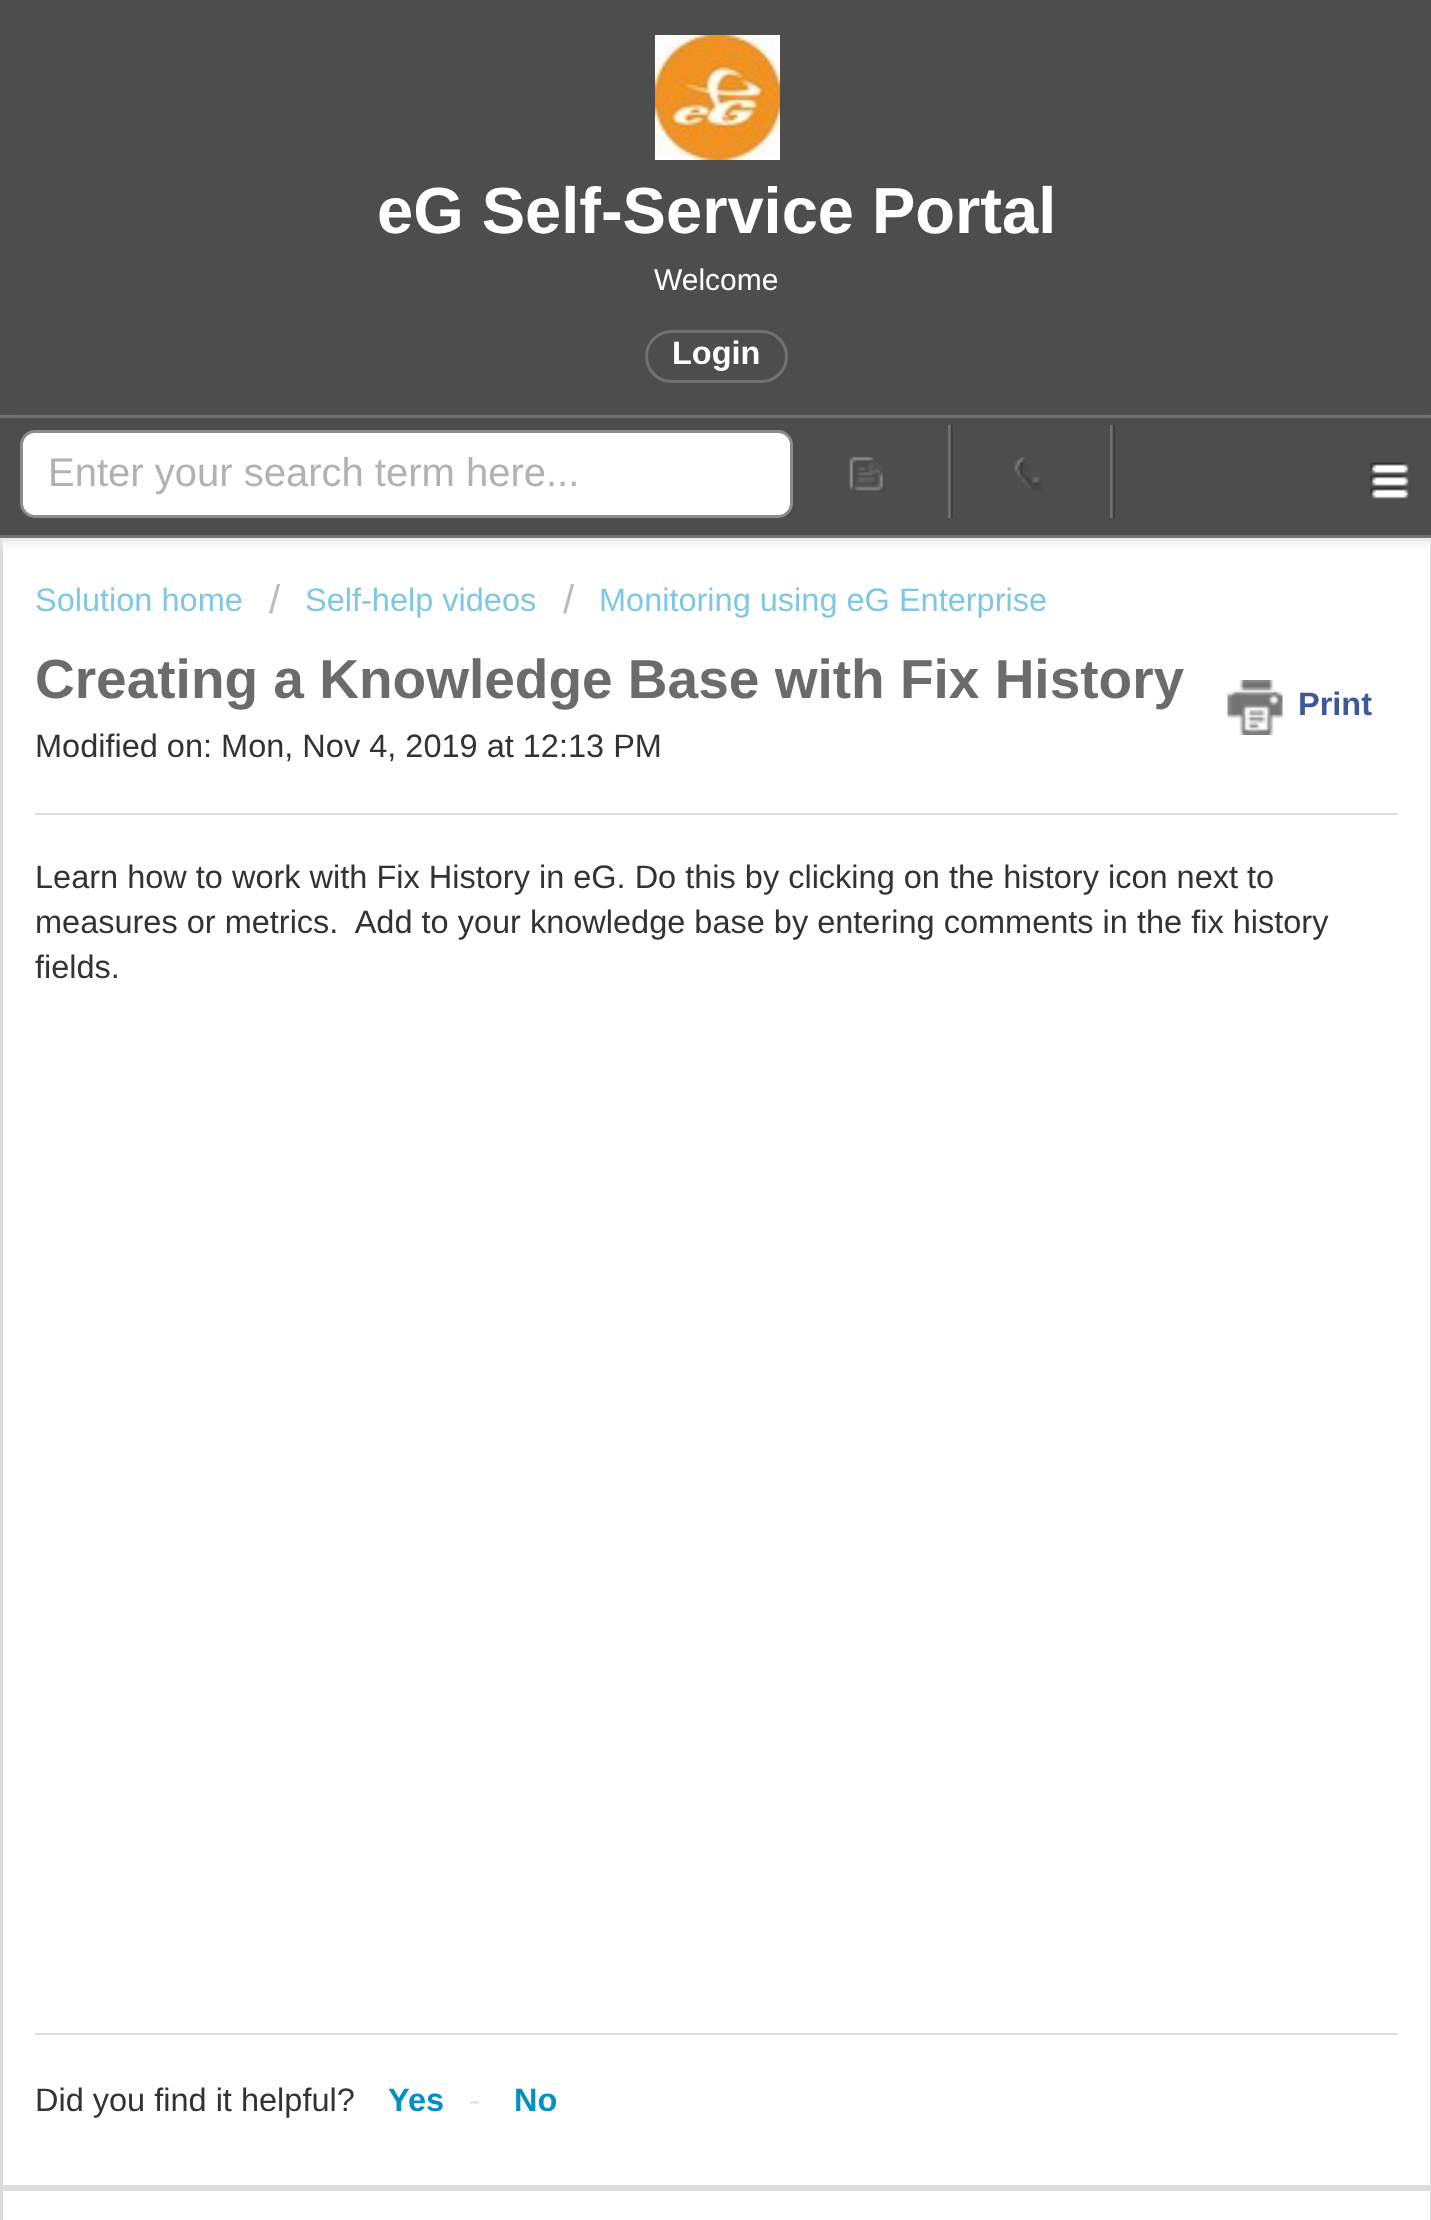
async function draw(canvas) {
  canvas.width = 1431;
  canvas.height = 2220;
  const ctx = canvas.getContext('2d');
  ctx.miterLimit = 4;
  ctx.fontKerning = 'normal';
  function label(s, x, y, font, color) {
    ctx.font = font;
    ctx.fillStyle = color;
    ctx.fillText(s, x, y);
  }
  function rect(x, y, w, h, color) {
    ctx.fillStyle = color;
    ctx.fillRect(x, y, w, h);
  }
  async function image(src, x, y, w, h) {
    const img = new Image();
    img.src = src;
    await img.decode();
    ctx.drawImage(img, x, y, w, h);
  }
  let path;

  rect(0, 0, 1431, 2220, '#4d4d4d');
  await image('assets/img1.png', 655, 35, 125, 125);
  label('eG Self-Service Portal', 377, 233, 'bold 65px Liberation Sans', '#fff');
  label('Welcome', 654, 290, '30px Liberation Sans', '#fff');
  ctx.beginPath();
  ctx.roundRect(646.5, 331.5, 140, 50, 25);
  ctx.strokeStyle = '#717171';
  ctx.lineWidth = 3;
  ctx.stroke();
  label('Login', 672, 364, 'bold 32.5px Liberation Sans', '#fff');
  ctx.beginPath();
  ctx.rect(1.5, 539.5, 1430, 1647);
  ctx.fill();
  ctx.strokeStyle = '#dcdcdc';
  ctx.stroke();
  ctx.fillStyle = '#eee';
  ctx.filter = 'blur(5px)';
  ctx.beginPath();
  ctx.rect(0, 423, 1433, 122);
  ctx.fill();
  ctx.filter = 'none';
  rect(0, 418, 1431, 117, '#4d4d4d');
  rect(0, 415, 1431, 3, '#717171');
  rect(0, 535, 1431, 3, '#717171');
  await image('assets/img2.png', 1369, 462, 40, 37);
  ctx.fillStyle = '#fff';
  ctx.beginPath();
  ctx.roundRect(21.5, 431.5, 770, 85, 13.5);
  ctx.fill();
  ctx.strokeStyle = '#8c8c8c';
  ctx.stroke();
  label('Enter your search term here...', 48, 486, '40px Liberation Sans', '#b2b2b2');
  ctx.fillStyle = '#3e3e3e';
  path = new Path2D('M790 518H953V425H950V518Z');
  ctx.fill(path);
  rect(948, 425, 3, 93, '#ffffff33');
  await image('assets/img3.png', 849, 456, 36, 36);
  ctx.fillStyle = '#3e3e3e';
  path = new Path2D('M953 518H1115V425H1112V518Z');
  ctx.fill(path);
  rect(1110, 425, 3, 93, '#ffffff33');
  await image('assets/img4.png', 1014, 457, 31, 34);
  label('Solution home', 35, 611, '32.5px Liberation Sans', '#80c8e1');
  label('/', 269, 613, '40px Liberation Sans', '#bbb');
  label('Self-help videos', 305, 611, '32.5px Liberation Sans', '#80c8e1');
  label('/', 563, 613, '40px Liberation Sans', '#bbb');
  label('Monitoring using eG Enterprise', 599, 611, '32.5px Liberation Sans', '#80c8e1');
  label('Creating a Knowledge Base with Fix History', 35, 698, 'bold 55px Liberation Sans', '#6b6b6b');
  await image('assets/img5.png', 1227, 680, 56, 55);
  label('Print', 1298, 715, 'bold 32.5px Liberation Sans', '#3b5998');
  label('Modified on: Mon, Nov 4, 2019 at 12:13 PM', 35, 757, '32.5px Liberation Sans', '#333');
  rect(35, 813, 1363, 2, '#dcdcdc');
  label('Learn how to work with Fix History in eG. Do this by clicking on the history icon next to', 35, 888, '32.5px Liberation Sans', '#333');
  label('measures or metrics.  Add to your knowledge base by entering comments in the fix history', 35, 933, '32.5px Liberation Sans', '#333');
  label('fields.', 35, 978, '32.5px Liberation Sans', '#333');
  rect(35, 2033, 1363, 2, '#dcdcdc');
  label('Did you find it helpful?', 35, 2111, '32.5px Liberation Sans', '#333');
  label('Yes', 388, 2111, 'bold 32.5px Liberation Sans', '#0090c3');
  label('-', 469, 2111, '32.5px Liberation Sans', '#e5e5e5');
  label('No', 514, 2111, 'bold 32.5px Liberation Sans', '#0090c3');
  ctx.fillStyle = '#fff';
  ctx.beginPath();
  ctx.rect(1.5, 2189.5, 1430, 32);
  ctx.fill();
  ctx.strokeStyle = '#dcdcdc';
  ctx.stroke();
}

draw(document.querySelector('canvas'));
